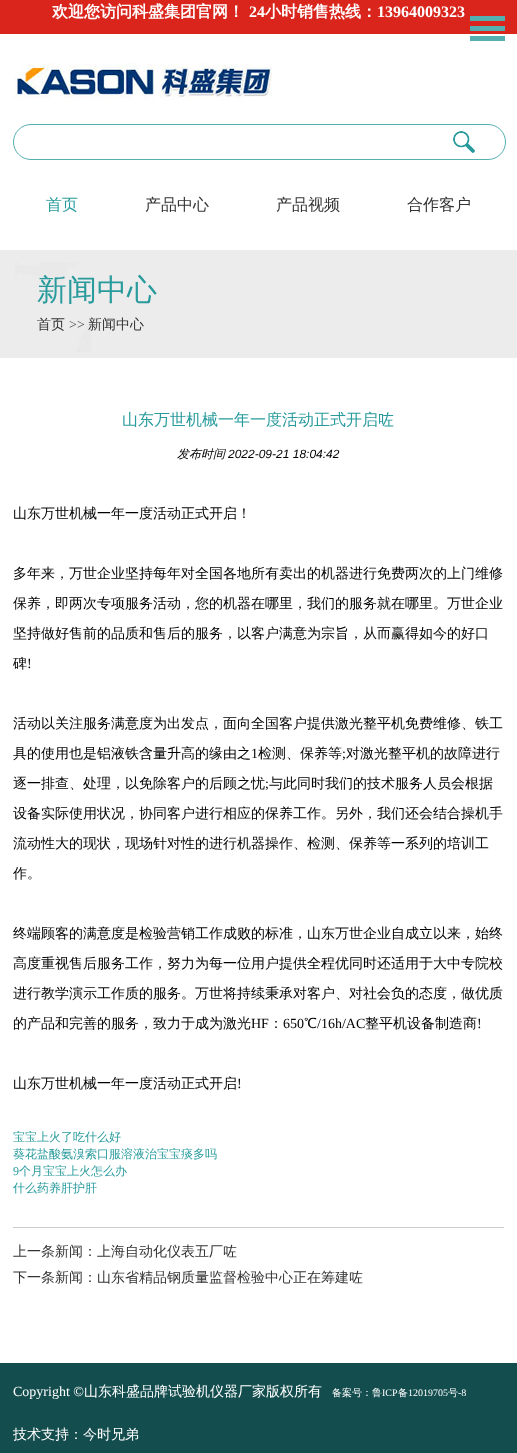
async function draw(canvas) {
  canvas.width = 517;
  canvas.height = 1453;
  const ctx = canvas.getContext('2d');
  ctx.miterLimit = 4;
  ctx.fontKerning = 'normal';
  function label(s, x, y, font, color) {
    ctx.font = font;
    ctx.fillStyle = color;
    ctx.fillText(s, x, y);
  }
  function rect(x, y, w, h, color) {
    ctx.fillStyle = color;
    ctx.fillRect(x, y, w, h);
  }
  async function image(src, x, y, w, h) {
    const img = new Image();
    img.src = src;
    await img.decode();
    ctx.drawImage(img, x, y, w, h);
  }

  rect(0, 0, 517, 1453, '#fff');
  rect(0, 0, 517, 34, '#da251c');
  label('欢迎您访问科盛集团官网！', 52, 17, 'bold 16px WenQuanYi Zen Hei', '#fff');
  label('24', 249, 17, 'bold 16px Liberation Serif', '#fff');
  label('小时销售热线：', 265, 17, 'bold 16px WenQuanYi Zen Hei', '#fff');
  label('13964009323', 377, 17, 'bold 16px Liberation Serif', '#fff');
  rect(470, 16, 35, 5, '#54afb1');
  rect(470, 26, 35, 5, '#54afb1');
  rect(470, 36, 35, 5, '#54afb1');
  await image('assets/img1.png', 13, 63, 259, 38);
  ctx.beginPath();
  ctx.roundRect(13.5, 124.5, 492, 35, 17.5);
  ctx.strokeStyle = '#54afb1';
  ctx.stroke();
  await image('assets/img2.png', 453, 131, 22, 22);
  label('首页', 46, 210, '500 16px WenQuanYi Zen Hei', '#299b9d');
  label('产品中心', 145, 210, '500 16px WenQuanYi Zen Hei', '#333');
  label('产品视频', 276, 210, '500 16px WenQuanYi Zen Hei', '#333');
  label('合作客户', 407, 210, '500 16px WenQuanYi Zen Hei', '#333');
  rect(0, 250, 517, 108, '#ececec');
  await image('assets/img3.png', 15, 262, 76, 90);
  label('新闻中心', 37, 300, '500 30px WenQuanYi Zen Hei', '#299b9d');
  label('首页', 37, 329, '500 14px WenQuanYi Zen Hei', '#333');
  label('>>', 69, 329, '14px Liberation Serif', '#4d4d4d');
  label('新闻中心', 88, 329, '500 14px WenQuanYi Zen Hei', '#333');
  label('山东万世机械一年一度活动正式开启咗', 122, 425, '500 16px WenQuanYi Zen Hei', '#299b9d');
  label('发布时间', 177, 458, 'italic 500 12px WenQuanYi Zen Hei', '#000');
  label('2022-09-21 18:04:42', 228, 458, 'italic 12px Liberation Sans', '#000');
  label('山东万世机械一年一度活动正式开启！', 13, 518, '500 14px WenQuanYi Zen Hei', '#000');
  label('多年来，万世企业坚持每年对全国各地所有卖出的机器进行免费两次的上门维修', 13, 578, '500 14px WenQuanYi Zen Hei', '#000');
  label('保养，即两次专项服务活动，您的机器在哪里，我们的服务就在哪里。万世企业', 13, 608, '500 14px WenQuanYi Zen Hei', '#000');
  label('坚持做好售前的品质和售后的服务，以客户满意为宗旨，从而赢得如今的好口', 13, 638, '500 14px WenQuanYi Zen Hei', '#000');
  label('碑', 13, 668, '500 14px WenQuanYi Zen Hei', '#000');
  label('!', 27, 668, '14px Liberation Serif', '#000');
  label('活动以关注服务满意度为出发点，面向全国客户提供激光整平机免费维修、铁工', 13, 728, '500 14px WenQuanYi Zen Hei', '#000');
  label('具的使用也是铝液铁含量升高的缘由之', 13, 758, '500 14px WenQuanYi Zen Hei', '#000');
  label('1', 251, 758, '14px Liberation Serif', '#000');
  label('检测、保养等', 258, 758, '500 14px WenQuanYi Zen Hei', '#000');
  label(';', 342, 758, '14px Liberation Serif', '#000');
  label('对激光整平机的故障进行', 346, 758, '500 14px WenQuanYi Zen Hei', '#000');
  label('逐一排查、处理，以免除客户的后顾之忧', 13, 788, '500 14px WenQuanYi Zen Hei', '#000');
  label(';', 265, 788, '14px Liberation Serif', '#000');
  label('与此同时我们的技术服务人员会根据', 269, 788, '500 14px WenQuanYi Zen Hei', '#000');
  label('设备实际使用状况，协同客户进行相应的保养工作。另外，我们还会结合操机手', 13, 818, '500 14px WenQuanYi Zen Hei', '#000');
  label('流动性大的现状，现场针对性的进行机器操作、检测、保养等一系列的培训工', 13, 848, '500 14px WenQuanYi Zen Hei', '#000');
  label('作。', 13, 878, '500 14px WenQuanYi Zen Hei', '#000');
  label('终端顾客的满意度是检验营销工作成败的标准，山东万世企业自成立以来，始终', 13, 938, '500 14px WenQuanYi Zen Hei', '#000');
  label('高度重视售后服务工作，努力为每一位用户提供全程优同时还适用于大中专院校', 13, 968, '500 14px WenQuanYi Zen Hei', '#000');
  label('进行教学演示工作质的服务。万世将持续秉承对客户、对社会负的态度，做优质', 13, 998, '500 14px WenQuanYi Zen Hei', '#000');
  label('的产品和完善的服务，致力于成为激光', 13, 1028, '500 14px WenQuanYi Zen Hei', '#000');
  label('HF', 251, 1028, '14px Liberation Serif', '#000');
  label('：', 269, 1028, '500 14px WenQuanYi Zen Hei', '#000');
  label('650', 283, 1028, '14px Liberation Serif', '#000');
  label('℃', 304, 1028, '500 14px WenQuanYi Zen Hei', '#000');
  label('/16h/AC', 317, 1028, '14px Liberation Serif', '#000');
  label('整平机设备制造商', 365, 1028, '500 14px WenQuanYi Zen Hei', '#000');
  label('!', 477, 1028, '14px Liberation Serif', '#000');
  label('山东万世机械一年一度活动正式开启', 13, 1088, '500 14px WenQuanYi Zen Hei', '#000');
  label('!', 237, 1088, '14px Liberation Serif', '#000');
  label('宝宝上火了吃什么好', 13, 1141, '500 12px WenQuanYi Zen Hei', '#299b9d');
  label('葵花盐酸氨溴索口服溶液治宝宝痰多吗', 13, 1158, '500 12px WenQuanYi Zen Hei', '#299b9d');
  label('9', 13, 1175, '12px Liberation Serif', '#299b9d');
  label('个月宝宝上火怎么办', 19, 1175, '500 12px WenQuanYi Zen Hei', '#299b9d');
  label('什么药养肝护肝', 13, 1192, '500 12px WenQuanYi Zen Hei', '#299b9d');
  rect(13, 1227, 491, 1, '#ccc');
  label('上一条新闻：上海自动化仪表五厂咗', 13, 1256, '500 14px WenQuanYi Zen Hei', '#333');
  label('下一条新闻：山东省精品钢质量监督检验中心正在筹建咗', 13, 1282, '500 14px WenQuanYi Zen Hei', '#333');
  rect(0, 1363, 517, 90, '#144d4e');
  label('Copyright ©', 13, 1396, '14px Liberation Serif', '#fff');
  label('山东科盛品牌试验机仪器厂家版权所有', 84, 1396, '500 14px WenQuanYi Zen Hei', '#fff');
  label('备案号：鲁', 332, 1396, '500 10px WenQuanYi Zen Hei', '#fff');
  label('ICP', 382, 1396, '10px Liberation Serif', '#fff');
  label('备', 398, 1396, '500 10px WenQuanYi Zen Hei', '#fff');
  label('12019705', 408, 1396, '10px Liberation Serif', '#fff');
  label('号', 448, 1396, '500 10px WenQuanYi Zen Hei', '#fff');
  label('-8', 458, 1396, '10px Liberation Serif', '#fff');
  label('技术支持：今时兄弟', 13, 1439, '500 14px WenQuanYi Zen Hei', '#fff');
}

draw(document.querySelector('canvas'));
